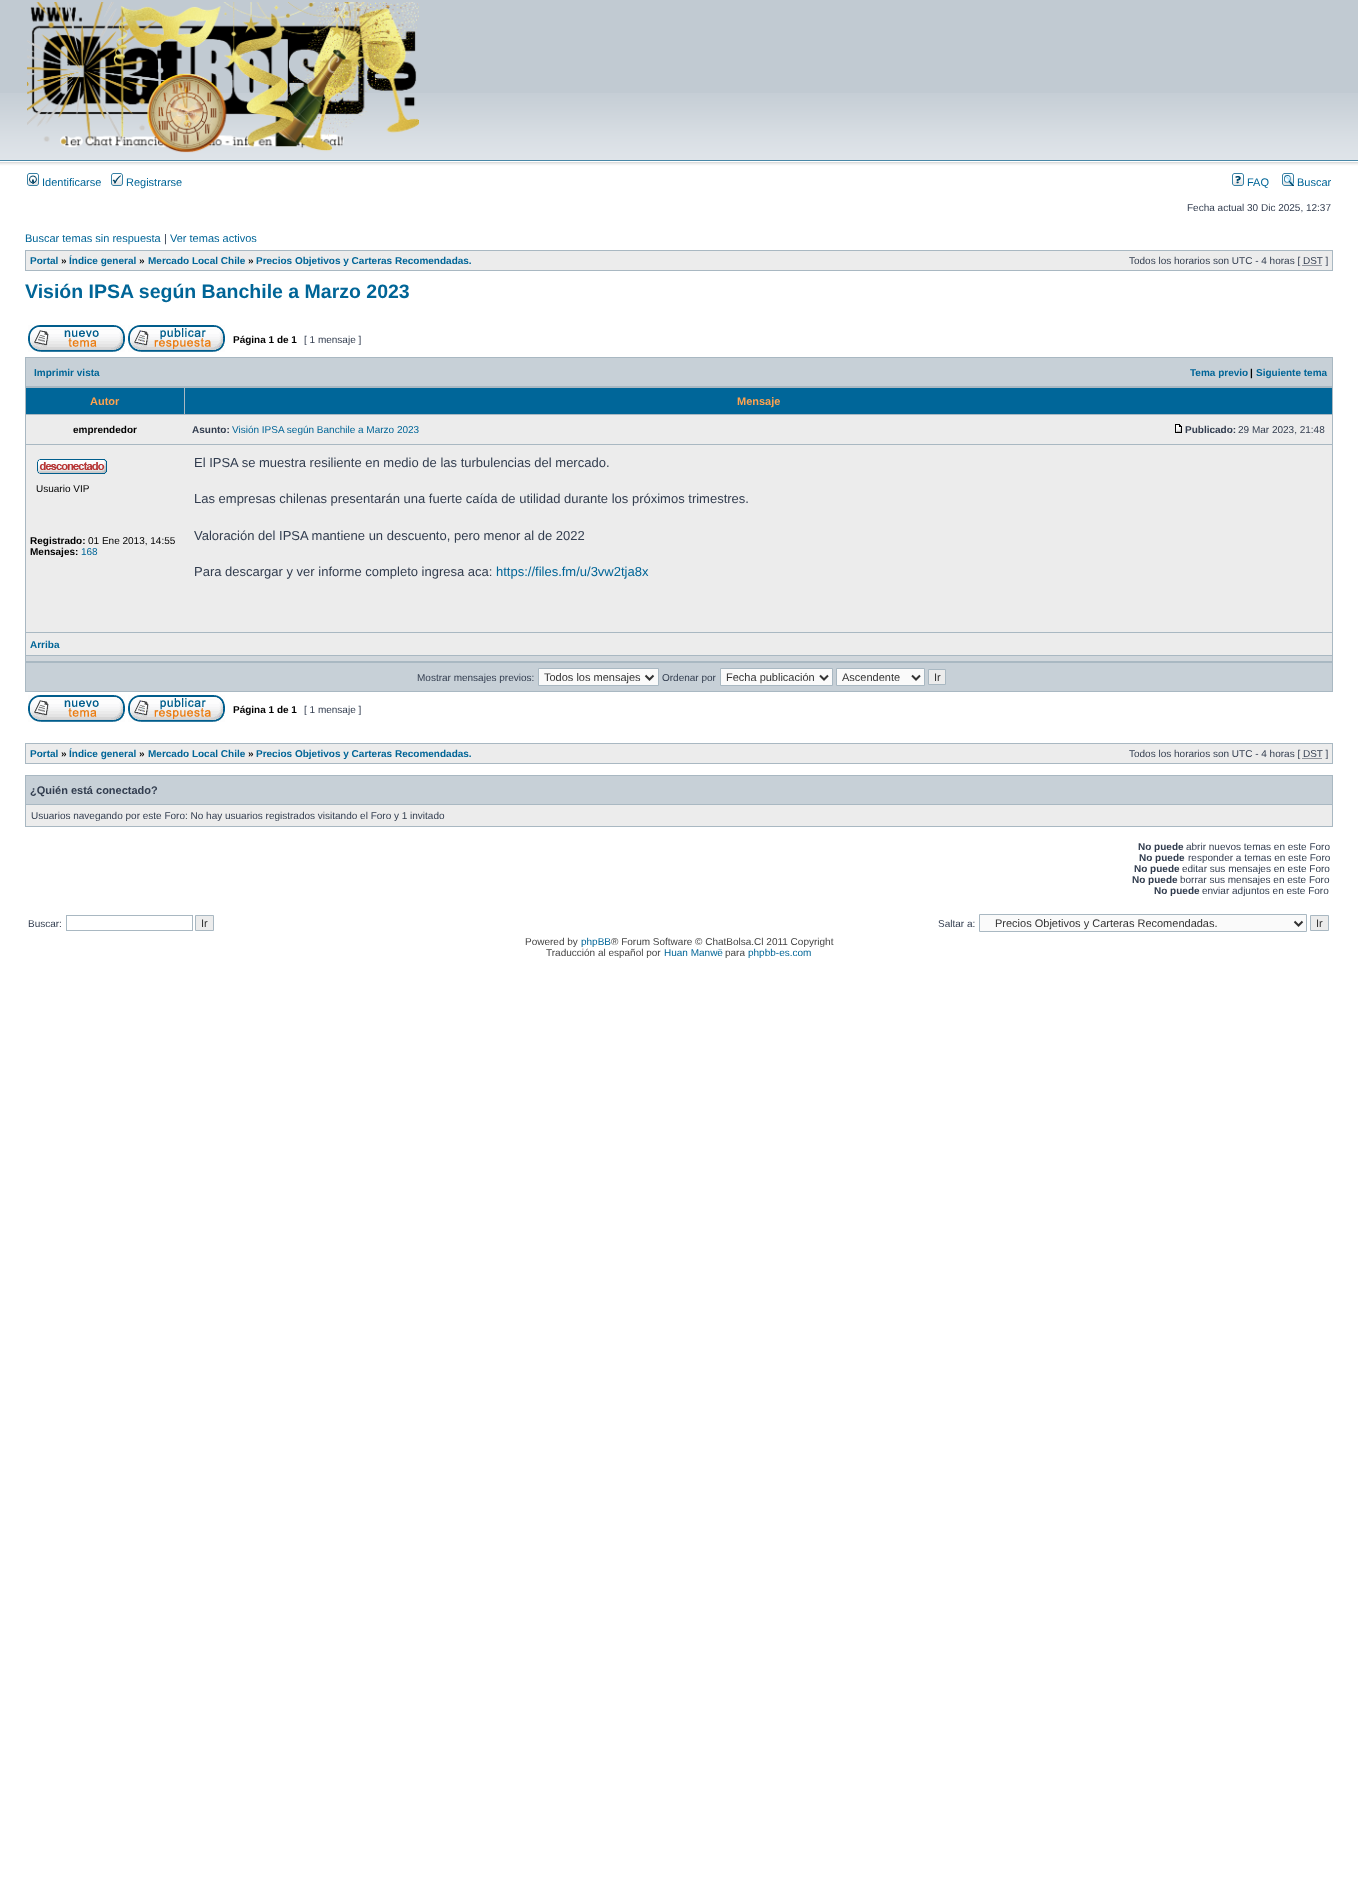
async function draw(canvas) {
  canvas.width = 1358;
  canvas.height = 1900;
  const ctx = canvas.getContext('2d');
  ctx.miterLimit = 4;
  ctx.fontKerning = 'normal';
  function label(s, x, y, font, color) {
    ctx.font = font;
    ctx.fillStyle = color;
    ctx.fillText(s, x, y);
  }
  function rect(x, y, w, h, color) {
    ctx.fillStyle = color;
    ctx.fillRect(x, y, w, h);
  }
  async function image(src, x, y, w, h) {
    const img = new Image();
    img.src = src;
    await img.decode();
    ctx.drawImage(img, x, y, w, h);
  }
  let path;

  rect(0, 0, 1358, 1900, '#fff');
  rect(0, 0, 1358, 93, '#c1cad2');
  await image('assets/img1.png', 0, 93, 1358, 78);
  await image('assets/img2.png', 27, 2, 392, 151);
  await image('assets/img3.png', 27, 173, 12, 13);
  label('Identificarse', 42, 186, '11px Liberation Sans', '#006597');
  await image('assets/img4.png', 111, 173, 12, 13);
  label('Registrarse', 126, 186, '11px Liberation Sans', '#006597');
  await image('assets/img5.png', 1232, 173, 12, 13);
  label('FAQ', 1247, 186, '11px Liberation Sans', '#006597');
  await image('assets/img6.png', 1282, 173, 12, 13);
  label('Buscar', 1297, 186, '11px Liberation Sans', '#006597');
  label('Fecha actual 30 Dic 2025, 12:37', 1187, 211, '10px Liberation Sans', '#323d4f');
  label('Buscar temas sin respuesta', 25, 242, '11px Liberation Sans', '#006597');
  label('|', 164, 242, '11px Liberation Sans', '#323d4f');
  label('Ver temas activos', 170, 242, '11px Liberation Sans', '#006597');
  rect(25, 250, 1308, 21, '#a9b8c2');
  rect(26, 251, 1306, 19, '#ececec');
  label('Portal', 30, 264, 'bold 10px Liberation Sans', '#006597');
  label('»', 61, 264, 'bold 10px Liberation Sans', '#000');
  label('Índice general', 69, 264, 'bold 10px Liberation Sans', '#006597');
  label('»', 139, 264, 'bold 10px Liberation Sans', '#000');
  label('Mercado Local Chile', 148, 264, 'bold 10px Liberation Sans', '#006597');
  label('»', 248, 264, 'bold 10px Liberation Sans', '#000');
  label('Precios Objetivos y Carteras Recomendadas.', 256, 264, 'bold 10px Liberation Sans', '#006597');
  label('Todos los horarios son UTC - 4 horas [ DST ]', 1129, 264, '10px Liberation Sans', '#323d4f');
  path = new Path2D('M1302.5 265.5H1322.5');
  ctx.strokeStyle = '#323d4f';
  ctx.setLineDash([1, 1]);
  ctx.stroke(path);
  label('Visión IPSA según Banchile a Marzo 2023', 25, 298, 'bold 19.5px Liberation Sans', '#006597');
  await image('assets/img7.png', 28, 325, 97, 27);
  await image('assets/img8.png', 128, 325, 97, 27);
  label('Página 1 de 1', 233, 343, 'bold 10px Liberation Sans', '#000');
  label('[ 1 mensaje ]', 304, 343, '10px Liberation Sans', '#323d4f');
  rect(25, 357, 1308, 335, '#a9b8c2');
  rect(26, 358, 1306, 28, '#c7d0d7');
  label('Imprimir vista', 34, 376, 'bold 10px Liberation Sans', '#006597');
  label('Tema previo', 1190, 376, 'bold 10px Liberation Sans', '#006597');
  label('|', 1250, 376, 'bold 10px Liberation Sans', '#000');
  label('Siguiente tema', 1256, 376, 'bold 10px Liberation Sans', '#006597');
  rect(26, 388, 158, 26, '#069');
  label('Autor', 90, 405, 'bold 11px Liberation Sans', '#ffa34f');
  rect(185, 388, 1147, 26, '#069');
  label('Mensaje', 737, 405, 'bold 11px Liberation Sans', '#ffa34f');
  rect(26, 415, 1306, 29, '#ececec');
  label('emprendedor', 73, 433, 'bold 10px Liberation Sans', '#000');
  label('Asunto:', 192, 433, 'bold 10px Liberation Sans', '#323d4f');
  label('Visión IPSA según Banchile a Marzo 2023', 232, 433, '10px Liberation Sans', '#006597');
  await image('assets/img9.png', 1175, 424, 7, 9);
  label('Publicado:', 1185, 433, 'bold 10px Liberation Sans', '#323d4f');
  label('29 Mar 2023, 21:48', 1238, 433, '10px Liberation Sans', '#323d4f');
  rect(26, 445, 1306, 187, '#ececec');
  await image('assets/img10.png', 37, 459, 70, 15);
  label('Usuario VIP', 36, 492, '10px Liberation Sans', '#000');
  label('Registrado:', 30, 544, 'bold 10px Liberation Sans', '#000');
  label('01 Ene 2013, 14:55', 88, 544, '10px Liberation Sans', '#000');
  label('Mensajes:', 30, 555, 'bold 10px Liberation Sans', '#000');
  label('168', 81, 555, '10px Liberation Sans', '#006597');
  label('El IPSA se muestra resiliente en medio de las turbulencias del mercado.', 194, 467, '13px Liberation Sans', '#323d4f');
  label('Las empresas chilenas presentarán una fuerte caída de utilidad durante los próximos trimestres.', 194, 503, '13px Liberation Sans', '#323d4f');
  label('Valoración del IPSA mantiene un descuento, pero menor al de 2022', 194, 540, '13px Liberation Sans', '#323d4f');
  label('Para descargar y ver informe completo ingresa aca:', 194, 576, '13px Liberation Sans', '#323d4f');
  label('https://files.fm/u/3vw2tja8x', 496, 576, '13px Liberation Sans', '#006597');
  rect(26, 633, 1306, 22, '#ececec');
  label('Arriba', 30, 648, 'bold 10px Liberation Sans', '#006597');
  rect(26, 656, 1306, 5, '#d1d7dc');
  rect(26, 663, 1306, 28, '#c7d0d7');
  label('Mostrar mensajes previos:', 417, 681, '10px Liberation Sans', '#323d4f');
  ctx.fillStyle = '#fafafa';
  ctx.beginPath();
  ctx.rect(538.5, 668.5, 120, 17);
  ctx.fill();
  ctx.strokeStyle = '#a9b8c2';
  ctx.setLineDash([]);
  ctx.stroke();
  path = new Path2D('M645.5 675.5L649.5 679.5L653.5 675.5');
  ctx.strokeStyle = '#333';
  ctx.lineWidth = 2;
  ctx.stroke(path);
  label('Todos los mensajes', 544, 681, '11px Liberation Sans', '#333');
  label('Ordenar por', 662, 681, '10px Liberation Sans', '#323d4f');
  ctx.fillStyle = '#fafafa';
  ctx.beginPath();
  ctx.rect(720.5, 668.5, 112, 17);
  ctx.fill();
  ctx.strokeStyle = '#a9b8c2';
  ctx.lineWidth = 1;
  ctx.stroke();
  path = new Path2D('M820 675.5L824 679.5L828 675.5');
  ctx.strokeStyle = '#333';
  ctx.lineWidth = 2;
  ctx.stroke(path);
  label('Fecha publicación', 726, 681, '11px Liberation Sans', '#333');
  ctx.fillStyle = '#fafafa';
  ctx.beginPath();
  ctx.rect(836.5, 668.5, 88, 17);
  ctx.fill();
  ctx.strokeStyle = '#a9b8c2';
  ctx.lineWidth = 1;
  ctx.stroke();
  path = new Path2D('M912 675.5L916 679.5L920 675.5');
  ctx.strokeStyle = '#333';
  ctx.lineWidth = 2;
  ctx.stroke(path);
  label('Ascendente', 842, 681, '11px Liberation Sans', '#333');
  ctx.fillStyle = '#ececec';
  ctx.beginPath();
  ctx.rect(928.5, 669.5, 17, 15);
  ctx.fill();
  ctx.strokeStyle = '#a9b8c2';
  ctx.lineWidth = 1;
  ctx.stroke();
  label('Ir', 934, 681, '11px Liberation Sans', '#333');
  await image('assets/img7.png', 28, 695, 97, 27);
  await image('assets/img8.png', 128, 695, 97, 27);
  label('Página 1 de 1', 233, 713, 'bold 10px Liberation Sans', '#000');
  label('[ 1 mensaje ]', 304, 713, '10px Liberation Sans', '#323d4f');
  rect(25, 743, 1308, 21, '#a9b8c2');
  rect(26, 744, 1306, 19, '#ececec');
  label('Portal', 30, 757, 'bold 10px Liberation Sans', '#006597');
  label('»', 61, 757, 'bold 10px Liberation Sans', '#000');
  label('Índice general', 69, 757, 'bold 10px Liberation Sans', '#006597');
  label('»', 139, 757, 'bold 10px Liberation Sans', '#000');
  label('Mercado Local Chile', 148, 757, 'bold 10px Liberation Sans', '#006597');
  label('»', 248, 757, 'bold 10px Liberation Sans', '#000');
  label('Precios Objetivos y Carteras Recomendadas.', 256, 757, 'bold 10px Liberation Sans', '#006597');
  label('Todos los horarios son UTC - 4 horas [ DST ]', 1129, 757, '10px Liberation Sans', '#323d4f');
  path = new Path2D('M1302.5 758.5H1322.5');
  ctx.strokeStyle = '#323d4f';
  ctx.setLineDash([1, 1]);
  ctx.stroke(path);
  rect(25, 775, 1308, 52, '#a9b8c2');
  rect(26, 776, 1306, 28, '#c7d0d7');
  label('¿Quién está conectado?', 30, 794, 'bold 11px Liberation Sans', '#323d4f');
  rect(26, 805, 1306, 21, '#ececec');
  label('Usuarios navegando por este Foro: No hay usuarios registrados visitando el Foro y 1 invitado', 31, 819, '10px Liberation Sans', '#323d4f');
  label('No puede', 1138, 850, 'bold 10px Liberation Sans', '#323d4f');
  label('abrir nuevos temas en este Foro', 1186, 850, '10px Liberation Sans', '#323d4f');
  label('No puede', 1139, 861, 'bold 10px Liberation Sans', '#323d4f');
  label('responder a temas en este Foro', 1188, 861, '10px Liberation Sans', '#323d4f');
  label('No puede', 1134, 872, 'bold 10px Liberation Sans', '#323d4f');
  label('editar sus mensajes en este Foro', 1182, 872, '10px Liberation Sans', '#323d4f');
  label('No puede', 1132, 883, 'bold 10px Liberation Sans', '#323d4f');
  label('borrar sus mensajes en este Foro', 1180, 883, '10px Liberation Sans', '#323d4f');
  label('No puede', 1154, 894, 'bold 10px Liberation Sans', '#323d4f');
  label('enviar adjuntos en este Foro', 1202, 894, '10px Liberation Sans', '#323d4f');
  label('Buscar:', 28, 927, '10px Liberation Sans', '#323d4f');
  ctx.strokeStyle = '#a9b8c2';
  ctx.setLineDash([]);
  ctx.strokeRect(66.5, 915.5, 126, 15);
  ctx.fillStyle = '#ececec';
  ctx.beginPath();
  ctx.rect(195.5, 915.5, 18, 15);
  ctx.fill();
  ctx.stroke();
  label('Ir', 201, 927, '11px Liberation Sans', '#333');
  label('Saltar a:', 938, 927, '10px Liberation Sans', '#323d4f');
  ctx.fillStyle = '#fafafa';
  ctx.beginPath();
  ctx.rect(979.5, 914.5, 327, 17);
  ctx.fill();
  ctx.stroke();
  path = new Path2D('M1294.5 921.5L1298.5 925.5L1302.5 921.5');
  ctx.strokeStyle = '#333';
  ctx.lineWidth = 2;
  ctx.stroke(path);
  label('Precios Objetivos y Carteras Recomendadas.', 995, 927, '11px Liberation Sans', '#333');
  ctx.fillStyle = '#ececec';
  ctx.beginPath();
  ctx.rect(1310.5, 915.5, 18, 15);
  ctx.fill();
  ctx.strokeStyle = '#a9b8c2';
  ctx.lineWidth = 1;
  ctx.stroke();
  label('Ir', 1316, 927, '11px Liberation Sans', '#333');
  label('Powered by', 525, 945, '10px Liberation Sans', '#444');
  label('phpBB', 581, 945, '10px Liberation Sans', '#006597');
  label('® Forum Software © ChatBolsa.Cl 2011 Copyright', 611, 945, '10px Liberation Sans', '#444');
  label('Traducción al español por', 546, 956, '10px Liberation Sans', '#444');
  label('Huan Manwë', 664, 956, '10px Liberation Sans', '#006597');
  label('para', 725, 956, '10px Liberation Sans', '#444');
  label('phpbb-es.com', 748, 956, '10px Liberation Sans', '#006597');
}

draw(document.querySelector('canvas'));
